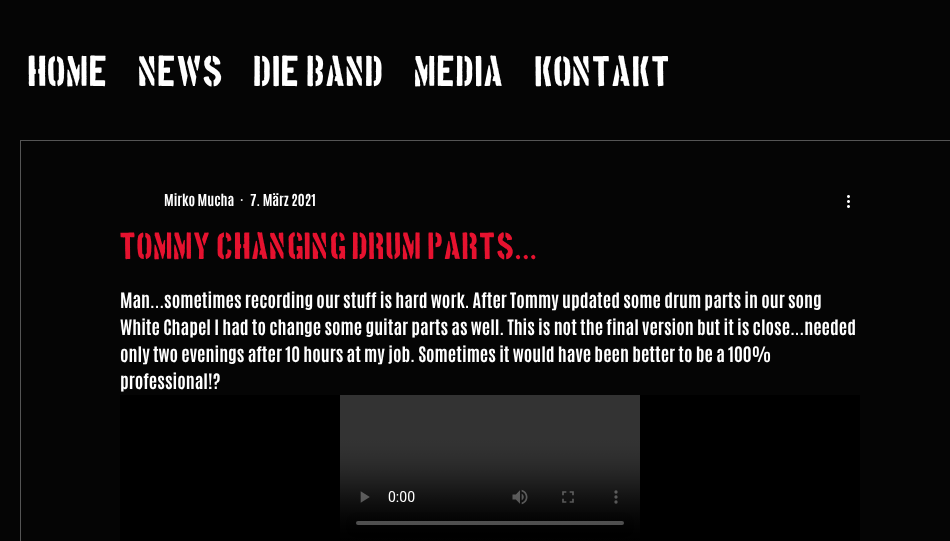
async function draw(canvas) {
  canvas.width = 950;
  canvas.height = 541;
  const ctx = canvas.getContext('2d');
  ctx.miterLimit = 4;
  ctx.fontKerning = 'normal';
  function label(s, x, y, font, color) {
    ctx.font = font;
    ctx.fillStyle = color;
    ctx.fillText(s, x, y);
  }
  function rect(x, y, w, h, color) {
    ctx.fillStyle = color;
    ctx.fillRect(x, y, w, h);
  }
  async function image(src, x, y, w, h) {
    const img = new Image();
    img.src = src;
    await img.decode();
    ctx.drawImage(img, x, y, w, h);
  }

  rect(0, 0, 950, 541, '#050505');
  label('HOME', 28, 86, '34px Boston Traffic', '#fff');
  label('NEWS', 139, 86, '34px Boston Traffic', '#fff');
  label('DIE BAND', 254, 86, '34px Boston Traffic', '#fff');
  label('MEDIA', 415, 86, '34px Boston Traffic', '#fff');
  label('KONTAKT', 535, 86, '34px Boston Traffic', '#fff');
  ctx.strokeStyle = '#555';
  ctx.strokeRect(20.5, 140.5, 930, 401);
  label('Mirko Mucha', 164, 206, 'bold 14px Antonio', '#fff');
  label('·', 240, 206, 'bold 14px Antonio', '#fff');
  label('7. März 2021', 250, 206, 'bold 14px Antonio', '#fff');
  await image('assets/img1.png', 847, 195, 3, 13);
  label('Tommy changing drum parts...', 120, 259, '30px Boston Traffic', '#e6122f');
  label('Man...sometimes recording our stuff is hard work. After Tommy updated some drum parts in our song', 120, 308, 'bold 18px Antonio', '#fff');
  label('White Chapel I had to change some guitar parts as well. This is not the final version but it is close...needed', 120, 335, 'bold 18px Antonio', '#fff');
  label('only two evenings after 10 hours at my job. Sometimes it would have been better to be a 100%', 120, 362, 'bold 18px Antonio', '#fff');
  label('professional!?', 120, 389, 'bold 18px Antonio', '#fff');
  await image('assets/img2.png', 120, 395, 740, 146);
}

draw(document.querySelector('canvas'));
